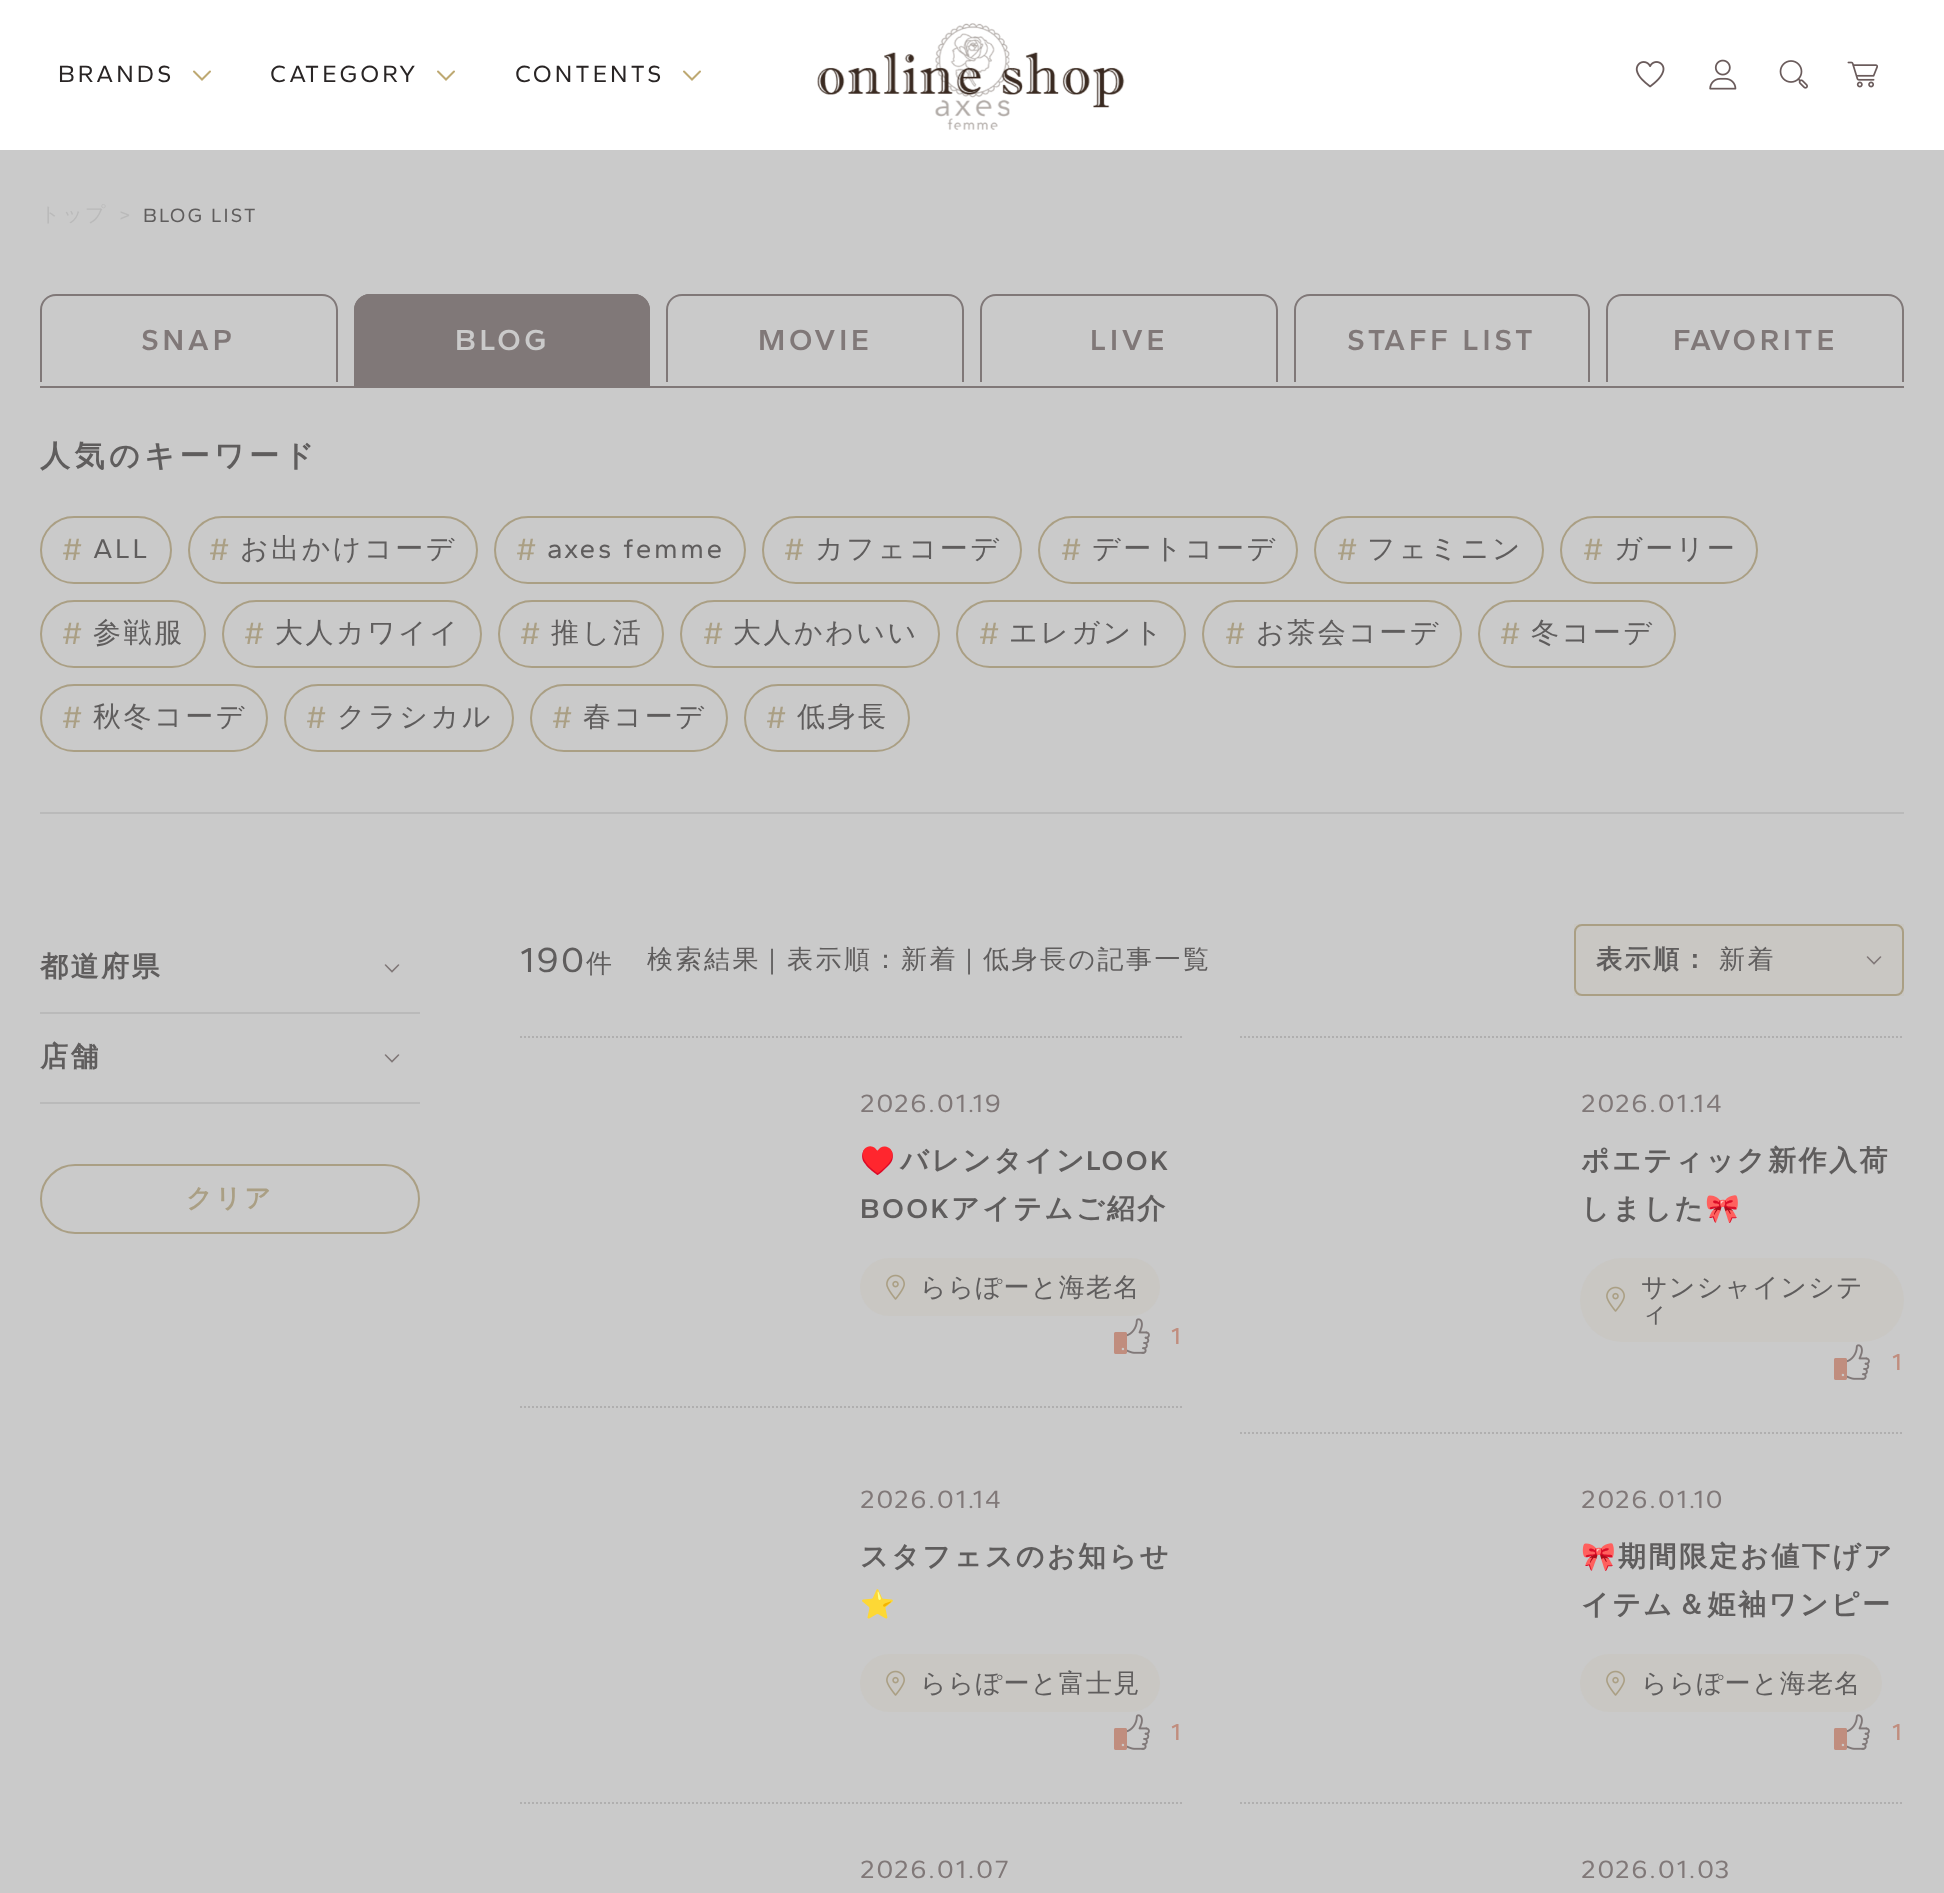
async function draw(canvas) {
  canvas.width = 1944;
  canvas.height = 1893;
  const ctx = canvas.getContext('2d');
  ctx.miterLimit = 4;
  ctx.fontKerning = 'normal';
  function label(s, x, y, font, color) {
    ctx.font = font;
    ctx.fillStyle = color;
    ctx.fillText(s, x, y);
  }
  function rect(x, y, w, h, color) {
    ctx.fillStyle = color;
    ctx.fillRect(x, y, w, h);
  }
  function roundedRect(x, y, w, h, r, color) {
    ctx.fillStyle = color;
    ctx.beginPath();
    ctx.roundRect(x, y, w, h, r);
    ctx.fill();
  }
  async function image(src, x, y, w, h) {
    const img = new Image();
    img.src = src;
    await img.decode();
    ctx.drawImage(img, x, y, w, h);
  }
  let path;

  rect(0, 0, 1944, 1893, '#cacaca');
  rect(0, 0, 1944, 150, '#fff');
  ctx.letterSpacing = '3px';
  label('BRANDS', 58, 82, '24.25px Gantari', '#292525');
  path = new Path2D('M210 71.5L202 79.5L194 71.5');
  ctx.strokeStyle = '#bea972';
  ctx.lineWidth = 2;
  ctx.lineCap = 'round';
  ctx.stroke(path);
  label('CATEGORY', 270, 82, '24.25px Gantari', '#292525');
  path = new Path2D('M454 71.5L446 79.5L438 71.5');
  ctx.stroke(path);
  label('CONTENTS', 515, 82, '24.25px Gantari', '#292525');
  path = new Path2D('M700 71.5L692 79.5L684 71.5');
  ctx.stroke(path);
  await image('assets/img1.png', 817, 23, 308, 107);
  await image('assets/img2.png', 1635, 61, 30, 27);
  await image('assets/img3.png', 1709, 59, 28, 31);
  await image('assets/img4.png', 1779, 60, 29, 29);
  await image('assets/img5.png', 1847, 61, 31, 27);
  ctx.letterSpacing = '2px';
  label('トップ', 40, 221, '500 20px WenQuanYi Zen Hei', '#bababa');
  label('>', 119, 222, '20px Gantari', '#bababa');
  label('BLOG LIST', 143, 222, '20px Gantari', '#5f5d5d');
  rect(40, 386, 1864, 2, '#807878');
  path = new Path2D('M56 294H322C331 294 338 301 338 310V386H40V310C40 301 47 294 56 294ZM56 296H322C330 296 336 302 336 310V386H42V310C42 302 48 296 56 296Z');
  ctx.fill(path, 'evenodd');
  ctx.letterSpacing = '3.75px';
  label('SNAP', 141, 350, '600 30px Gantari', '#807878');
  rect(40, 382, 2, 4, '#cacaca');
  rect(336, 382, 2, 4, '#cacaca');
  ctx.fillStyle = '#807878';
  ctx.beginPath();
  ctx.roundRect(354, 294, 296, 92, [16, 16, 0, 0]);
  ctx.fill();
  path = new Path2D('M370 294H634C643 294 650 301 650 310V386H354V310C354 301 361 294 370 294ZM370 296H634C642 296 648 302 648 310V386H356V310C356 302 362 296 370 296Z');
  ctx.fill(path, 'evenodd');
  label('BLOG', 455, 350, '600 30px Gantari', '#cacaca');
  ctx.fillStyle = '#807878';
  path = new Path2D('M682 294H948C957 294 964 301 964 310V386H666V310C666 301 673 294 682 294ZM682 296H948C956 296 962 302 962 310V386H668V310C668 302 674 296 682 296Z');
  ctx.fill(path, 'evenodd');
  label('MOVIE', 758, 350, '600 30px Gantari', '#807878');
  rect(666, 382, 2, 4, '#cacaca');
  rect(962, 382, 2, 4, '#cacaca');
  ctx.fillStyle = '#807878';
  path = new Path2D('M996 294H1262C1271 294 1278 301 1278 310V386H980V310C980 301 987 294 996 294ZM996 296H1262C1270 296 1276 302 1276 310V386H982V310C982 302 988 296 996 296Z');
  ctx.fill(path, 'evenodd');
  label('LIVE', 1090, 350, '600 30px Gantari', '#807878');
  rect(980, 382, 2, 4, '#cacaca');
  rect(1276, 382, 2, 4, '#cacaca');
  ctx.fillStyle = '#807878';
  path = new Path2D('M1310 294H1574C1583 294 1590 301 1590 310V386H1294V310C1294 301 1301 294 1310 294ZM1310 296H1574C1582 296 1588 302 1588 310V386H1296V310C1296 302 1302 296 1310 296Z');
  ctx.fill(path, 'evenodd');
  label('STAFF LIST', 1347, 350, '600 30px Gantari', '#807878');
  rect(1294, 382, 2, 4, '#cacaca');
  rect(1588, 382, 2, 4, '#cacaca');
  ctx.fillStyle = '#807878';
  path = new Path2D('M1622 294H1888C1897 294 1904 301 1904 310V386H1606V310C1606 301 1613 294 1622 294ZM1622 296H1888C1896 296 1902 302 1902 310V386H1608V310C1608 302 1614 296 1622 296Z');
  ctx.fill(path, 'evenodd');
  label('FAVORITE', 1673, 350, '600 30px Gantari', '#807878');
  rect(1606, 382, 2, 4, '#cacaca');
  rect(1902, 382, 2, 4, '#cacaca');
  rect(40, 812, 1864, 2, '#bababa');
  ctx.letterSpacing = '4.5px';
  label('人気のキーワード', 40, 466, 'bold 30px WenQuanYi Zen Hei', '#5f5d5d');
  ctx.beginPath();
  ctx.roundRect(41, 517, 130, 66, 33);
  ctx.strokeStyle = '#aa9f84';
  ctx.stroke();
  ctx.letterSpacing = '2.5px';
  label('#', 62, 560, '32px Gantari', '#aa9f84');
  label('ALL', 93, 558, '28px Gantari', '#5f5d5d');
  ctx.beginPath();
  ctx.roundRect(189, 517, 288, 66, 33);
  ctx.stroke();
  label('#', 209, 560, '32px Gantari', '#aa9f84');
  label('お出かけコーデ', 240, 558, '500 28px WenQuanYi Zen Hei', '#5f5d5d');
  ctx.beginPath();
  ctx.roundRect(495, 517, 250, 66, 33);
  ctx.stroke();
  label('#', 516, 560, '32px Gantari', '#aa9f84');
  label('axes femme', 547, 558, '28px Gantari', '#5f5d5d');
  ctx.beginPath();
  ctx.roundRect(763, 517, 258, 66, 33);
  ctx.stroke();
  label('#', 784, 560, '32px Gantari', '#aa9f84');
  label('カフェコーデ', 815, 558, '500 28px WenQuanYi Zen Hei', '#5f5d5d');
  ctx.beginPath();
  ctx.roundRect(1039, 517, 258, 66, 33);
  ctx.stroke();
  label('#', 1061, 560, '32px Gantari', '#aa9f84');
  label('デートコーデ', 1092, 558, '500 28px WenQuanYi Zen Hei', '#5f5d5d');
  ctx.beginPath();
  ctx.roundRect(1315, 517, 228, 66, 33);
  ctx.stroke();
  label('#', 1337, 560, '32px Gantari', '#aa9f84');
  label('フェミニン', 1367, 558, '500 28px WenQuanYi Zen Hei', '#5f5d5d');
  ctx.beginPath();
  ctx.roundRect(1561, 517, 196, 66, 33);
  ctx.stroke();
  label('#', 1583, 560, '32px Gantari', '#aa9f84');
  label('ガーリー', 1614, 558, '500 28px WenQuanYi Zen Hei', '#5f5d5d');
  ctx.beginPath();
  ctx.roundRect(41, 601, 164, 66, 33);
  ctx.stroke();
  label('#', 62, 644, '32px Gantari', '#aa9f84');
  label('参戦服', 93, 642, '500 28px WenQuanYi Zen Hei', '#5f5d5d');
  ctx.beginPath();
  ctx.roundRect(223, 601, 258, 66, 33);
  ctx.stroke();
  label('#', 244, 644, '32px Gantari', '#aa9f84');
  label('大人カワイイ', 275, 642, '500 28px WenQuanYi Zen Hei', '#5f5d5d');
  ctx.beginPath();
  ctx.roundRect(499, 601, 164, 66, 33);
  ctx.stroke();
  label('#', 520, 644, '32px Gantari', '#aa9f84');
  label('推し活', 551, 642, '500 28px WenQuanYi Zen Hei', '#5f5d5d');
  ctx.beginPath();
  ctx.roundRect(681, 601, 258, 66, 33);
  ctx.stroke();
  label('#', 703, 644, '32px Gantari', '#aa9f84');
  label('大人かわいい', 733, 642, '500 28px WenQuanYi Zen Hei', '#5f5d5d');
  ctx.beginPath();
  ctx.roundRect(957, 601, 228, 66, 33);
  ctx.stroke();
  label('#', 979, 644, '32px Gantari', '#aa9f84');
  label('エレガント', 1009, 642, '500 28px WenQuanYi Zen Hei', '#5f5d5d');
  ctx.beginPath();
  ctx.roundRect(1203, 601, 258, 66, 33);
  ctx.stroke();
  label('#', 1225, 644, '32px Gantari', '#aa9f84');
  label('お茶会コーデ', 1256, 642, '500 28px WenQuanYi Zen Hei', '#5f5d5d');
  ctx.beginPath();
  ctx.roundRect(1479, 601, 196, 66, 33);
  ctx.stroke();
  label('#', 1500, 644, '32px Gantari', '#aa9f84');
  label('冬コーデ', 1531, 642, '500 28px WenQuanYi Zen Hei', '#5f5d5d');
  ctx.beginPath();
  ctx.roundRect(41, 685, 226, 66, 33);
  ctx.stroke();
  label('#', 62, 728, '32px Gantari', '#aa9f84');
  label('秋冬コーデ', 93, 726, '500 28px WenQuanYi Zen Hei', '#5f5d5d');
  ctx.beginPath();
  ctx.roundRect(285, 685, 228, 66, 33);
  ctx.stroke();
  label('#', 306, 728, '32px Gantari', '#aa9f84');
  label('クラシカル', 337, 726, '500 28px WenQuanYi Zen Hei', '#5f5d5d');
  ctx.beginPath();
  ctx.roundRect(531, 685, 196, 66, 33);
  ctx.stroke();
  label('#', 552, 728, '32px Gantari', '#aa9f84');
  label('春コーデ', 583, 726, '500 28px WenQuanYi Zen Hei', '#5f5d5d');
  ctx.beginPath();
  ctx.roundRect(745, 685, 164, 66, 33);
  ctx.stroke();
  label('#', 766, 728, '32px Gantari', '#aa9f84');
  label('低身長', 797, 726, '500 28px WenQuanYi Zen Hei', '#5f5d5d');
  rect(40, 1012, 380, 2, '#bababa');
  label('都道府県', 40, 976, 'bold 28px WenQuanYi Zen Hei', '#5f5d5d');
  path = new Path2D('M398.5 965L392 971.5L385.5 965');
  ctx.strokeStyle = '#807878';
  ctx.lineWidth = 1.6;
  ctx.stroke(path);
  rect(40, 1102, 380, 2, '#bababa');
  label('店舗', 40, 1066, 'bold 28px WenQuanYi Zen Hei', '#5f5d5d');
  path = new Path2D('M398.5 1055L392 1061.5L385.5 1055');
  ctx.stroke(path);
  ctx.beginPath();
  ctx.roundRect(41, 1165, 378, 68, 34);
  ctx.strokeStyle = '#aa9f84';
  ctx.lineWidth = 2;
  ctx.stroke();
  label('クリア', 186, 1207, 'bold 26px WenQuanYi Zen Hei', '#aa9f84');
  label('190', 520, 972, '36px Gantari', '#5f5d5d');
  label('件', 586, 972, '500 26px WenQuanYi Zen Hei', '#5f5d5d');
  label('検索結果', 647, 968, '500 26px WenQuanYi Zen Hei', '#5f5d5d');
  label('|', 769, 968, '26px Gantari', '#5f5d5d');
  label('表示順：新着', 787, 968, '500 26px WenQuanYi Zen Hei', '#5f5d5d');
  label('|', 966, 968, '26px Gantari', '#5f5d5d');
  label('低身長の記事一覧', 983, 968, '500 26px WenQuanYi Zen Hei', '#5f5d5d');
  rect(1574, 924, 330, 72, '#c9c7c3');
  ctx.beginPath();
  ctx.roundRect(1575, 925, 328, 70, 7);
  ctx.stroke();
  label('表示順：', 1596, 968, 'bold 26px WenQuanYi Zen Hei', '#5f5d5d');
  label('新着', 1719, 968, '500 26px WenQuanYi Zen Hei', '#5f5d5d');
  path = new Path2D('M1880.5 957L1874 963.5L1867.5 957');
  ctx.strokeStyle = '#807878';
  ctx.lineWidth = 1.6;
  ctx.stroke(path);
  path = new Path2D('M520 1037H1184');
  ctx.strokeStyle = '#b0afaf';
  ctx.lineWidth = 2;
  ctx.lineCap = 'butt';
  ctx.setLineDash([2, 2]);
  ctx.stroke(path);
  path = new Path2D('M520 1407H1184');
  ctx.stroke(path);
  ctx.letterSpacing = '2px';
  label('2026.01.19', 860, 1112, '26px Gantari', '#807878');
  ctx.letterSpacing = '2.5px';
  label('♥️', 860, 1170, 'bold 28px Noto Color Emoji', '#5f5d5d');
  label('バレンタイン', 900, 1170, 'bold 28px WenQuanYi Zen Hei', '#5f5d5d');
  label('LOOK', 1086, 1170, '600 28px Gantari', '#5f5d5d');
  label('BOOK', 860, 1218, '600 28px Gantari', '#5f5d5d');
  label('アイテムご紹介', 951, 1218, 'bold 28px WenQuanYi Zen Hei', '#5f5d5d');
  roundedRect(860, 1258, 300, 58, 29, '#c9c7c3');
  await image('assets/img6.png', 886, 1274, 19, 26);
  ctx.letterSpacing = '1.25px';
  label('ららぽーと海老名', 920, 1296, '500 26px WenQuanYi Zen Hei', '#5f5d5d');
  await image('assets/img7.png', 1114, 1318, 36, 36);
  ctx.letterSpacing = '2px';
  label('1', 1171, 1344, '500 24px Gantari', '#c08d7e');
  path = new Path2D('M1240 1037H1904');
  ctx.stroke(path);
  path = new Path2D('M1240 1433H1904');
  ctx.stroke(path);
  label('2026.01.14', 1581, 1112, '26px Gantari', '#807878');
  ctx.letterSpacing = '2.5px';
  label('ポエティック新作入荷', 1581, 1170, 'bold 28px WenQuanYi Zen Hei', '#5f5d5d');
  label('しました', 1581, 1218, 'bold 28px WenQuanYi Zen Hei', '#5f5d5d');
  label('🎀', 1705, 1218, 'bold 28px Noto Color Emoji', '#5f5d5d');
  roundedRect(1580, 1258, 324, 84, 42, '#c9c7c3');
  await image('assets/img6.png', 1606, 1286, 19, 26);
  ctx.letterSpacing = '1.25px';
  label('サンシャインシテ', 1641, 1296, '500 26px WenQuanYi Zen Hei', '#5f5d5d');
  label('ィ', 1641, 1322, '500 26px WenQuanYi Zen Hei', '#5f5d5d');
  await image('assets/img7.png', 1834, 1344, 36, 36);
  ctx.letterSpacing = '2px';
  label('1', 1892, 1370, '500 24px Gantari', '#c08d7e');
  path = new Path2D('M520 1803H1184');
  ctx.stroke(path);
  label('2026.01.14', 860, 1508, '26px Gantari', '#807878');
  ctx.letterSpacing = '2.5px';
  label('スタフェスのお知らせ', 860, 1566, 'bold 28px WenQuanYi Zen Hei', '#5f5d5d');
  label('⭐️', 860, 1614, 'bold 28px Noto Color Emoji', '#5f5d5d');
  roundedRect(860, 1654, 300, 58, 29, '#c9c7c3');
  await image('assets/img6.png', 886, 1670, 19, 26);
  ctx.letterSpacing = '1.25px';
  label('ららぽーと富士見', 920, 1692, '500 26px WenQuanYi Zen Hei', '#5f5d5d');
  await image('assets/img7.png', 1114, 1714, 36, 36);
  ctx.letterSpacing = '2px';
  label('1', 1171, 1740, '500 24px Gantari', '#c08d7e');
  path = new Path2D('M1240 1803H1904');
  ctx.stroke(path);
  label('2026.01.10', 1581, 1508, '26px Gantari', '#807878');
  ctx.letterSpacing = '2.5px';
  label('🎀', 1581, 1566, 'bold 28px Noto Color Emoji', '#5f5d5d');
  label('期間限定お値下げア', 1618, 1566, 'bold 28px WenQuanYi Zen Hei', '#5f5d5d');
  label('イテム', 1581, 1614, 'bold 28px WenQuanYi Zen Hei', '#5f5d5d');
  label('＆姫袖ワンピー', 1677, 1614, 'bold 28px WenQuanYi Zen Hei', '#5f5d5d');
  roundedRect(1580, 1654, 302, 58, 29, '#c9c7c3');
  await image('assets/img6.png', 1606, 1670, 19, 26);
  ctx.letterSpacing = '1.25px';
  label('ららぽーと海老名', 1641, 1692, '500 26px WenQuanYi Zen Hei', '#5f5d5d');
  await image('assets/img7.png', 1834, 1714, 36, 36);
  ctx.letterSpacing = '2px';
  label('1', 1892, 1740, '500 24px Gantari', '#c08d7e');
  label('2026.01.07', 860, 1878, '26px Gantari', '#807878');
  label('2026.01.03', 1581, 1878, '26px Gantari', '#807878');
}

draw(document.querySelector('canvas'));
